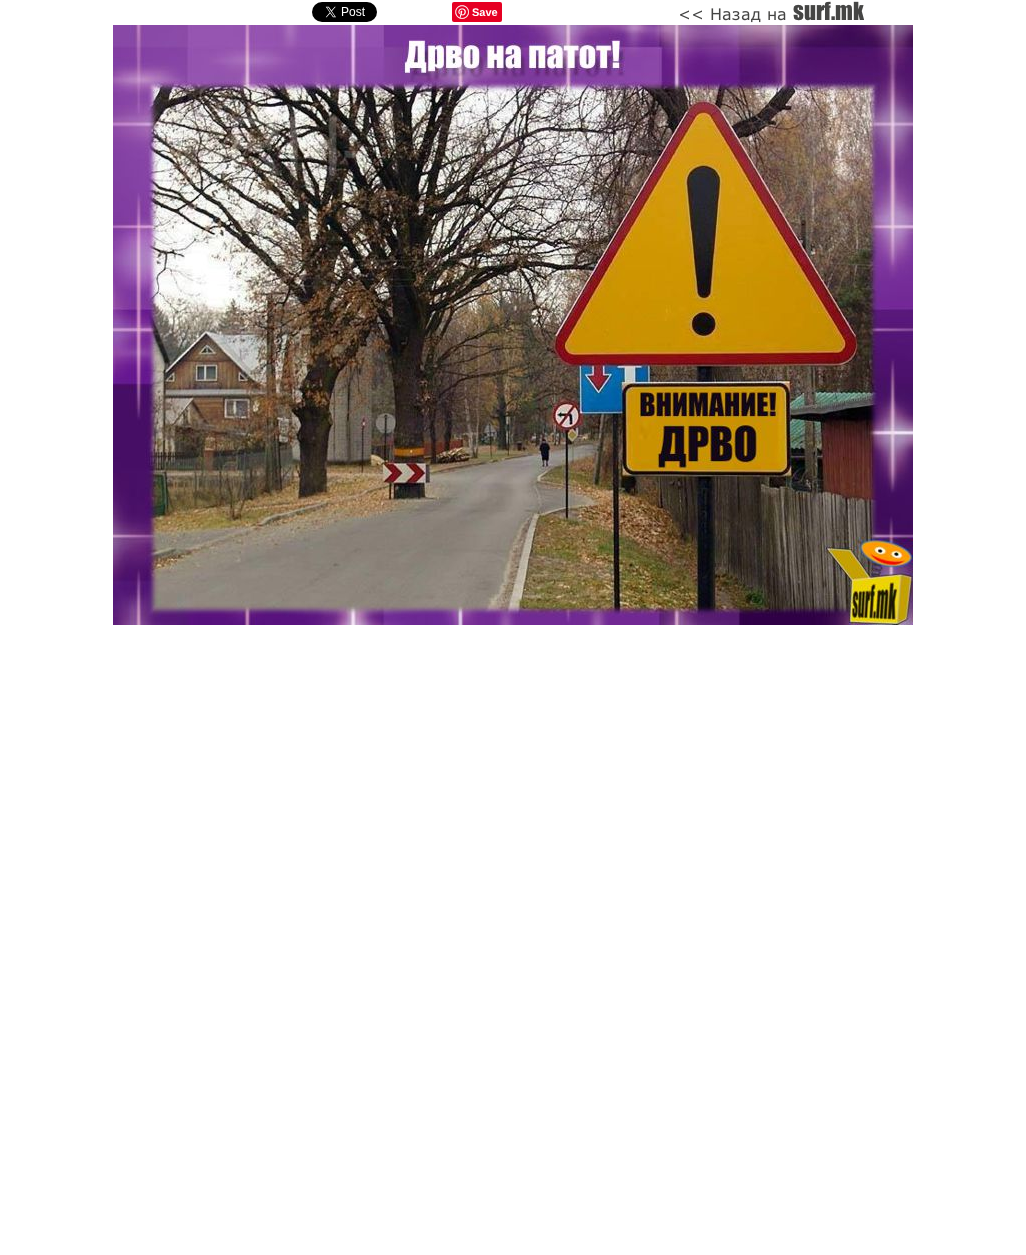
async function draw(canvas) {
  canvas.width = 1026;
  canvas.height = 1255;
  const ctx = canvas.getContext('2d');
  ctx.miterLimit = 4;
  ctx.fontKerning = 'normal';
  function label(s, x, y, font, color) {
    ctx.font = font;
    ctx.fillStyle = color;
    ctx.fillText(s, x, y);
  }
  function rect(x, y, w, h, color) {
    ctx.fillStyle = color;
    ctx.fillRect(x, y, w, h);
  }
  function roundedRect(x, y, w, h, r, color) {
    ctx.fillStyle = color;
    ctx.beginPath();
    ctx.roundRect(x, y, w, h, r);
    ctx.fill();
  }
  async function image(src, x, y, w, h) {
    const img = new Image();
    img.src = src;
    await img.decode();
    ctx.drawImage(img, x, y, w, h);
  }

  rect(0, 0, 1026, 1255, '#fff');
  await image('assets/img1.png', 312, 2, 65, 20);
  roundedRect(452, 2, 50, 20, 2, '#e60023');
  await image('assets/img2.png', 455, 5, 14, 14);
  label('Save', 472, 16, 'bold 11px Liberation Sans', '#fff');
  await image('assets/img3.png', 680, 1, 184, 22);
  await image('assets/img4.png', 113, 25, 800, 600);
}

draw(document.querySelector('canvas'));
